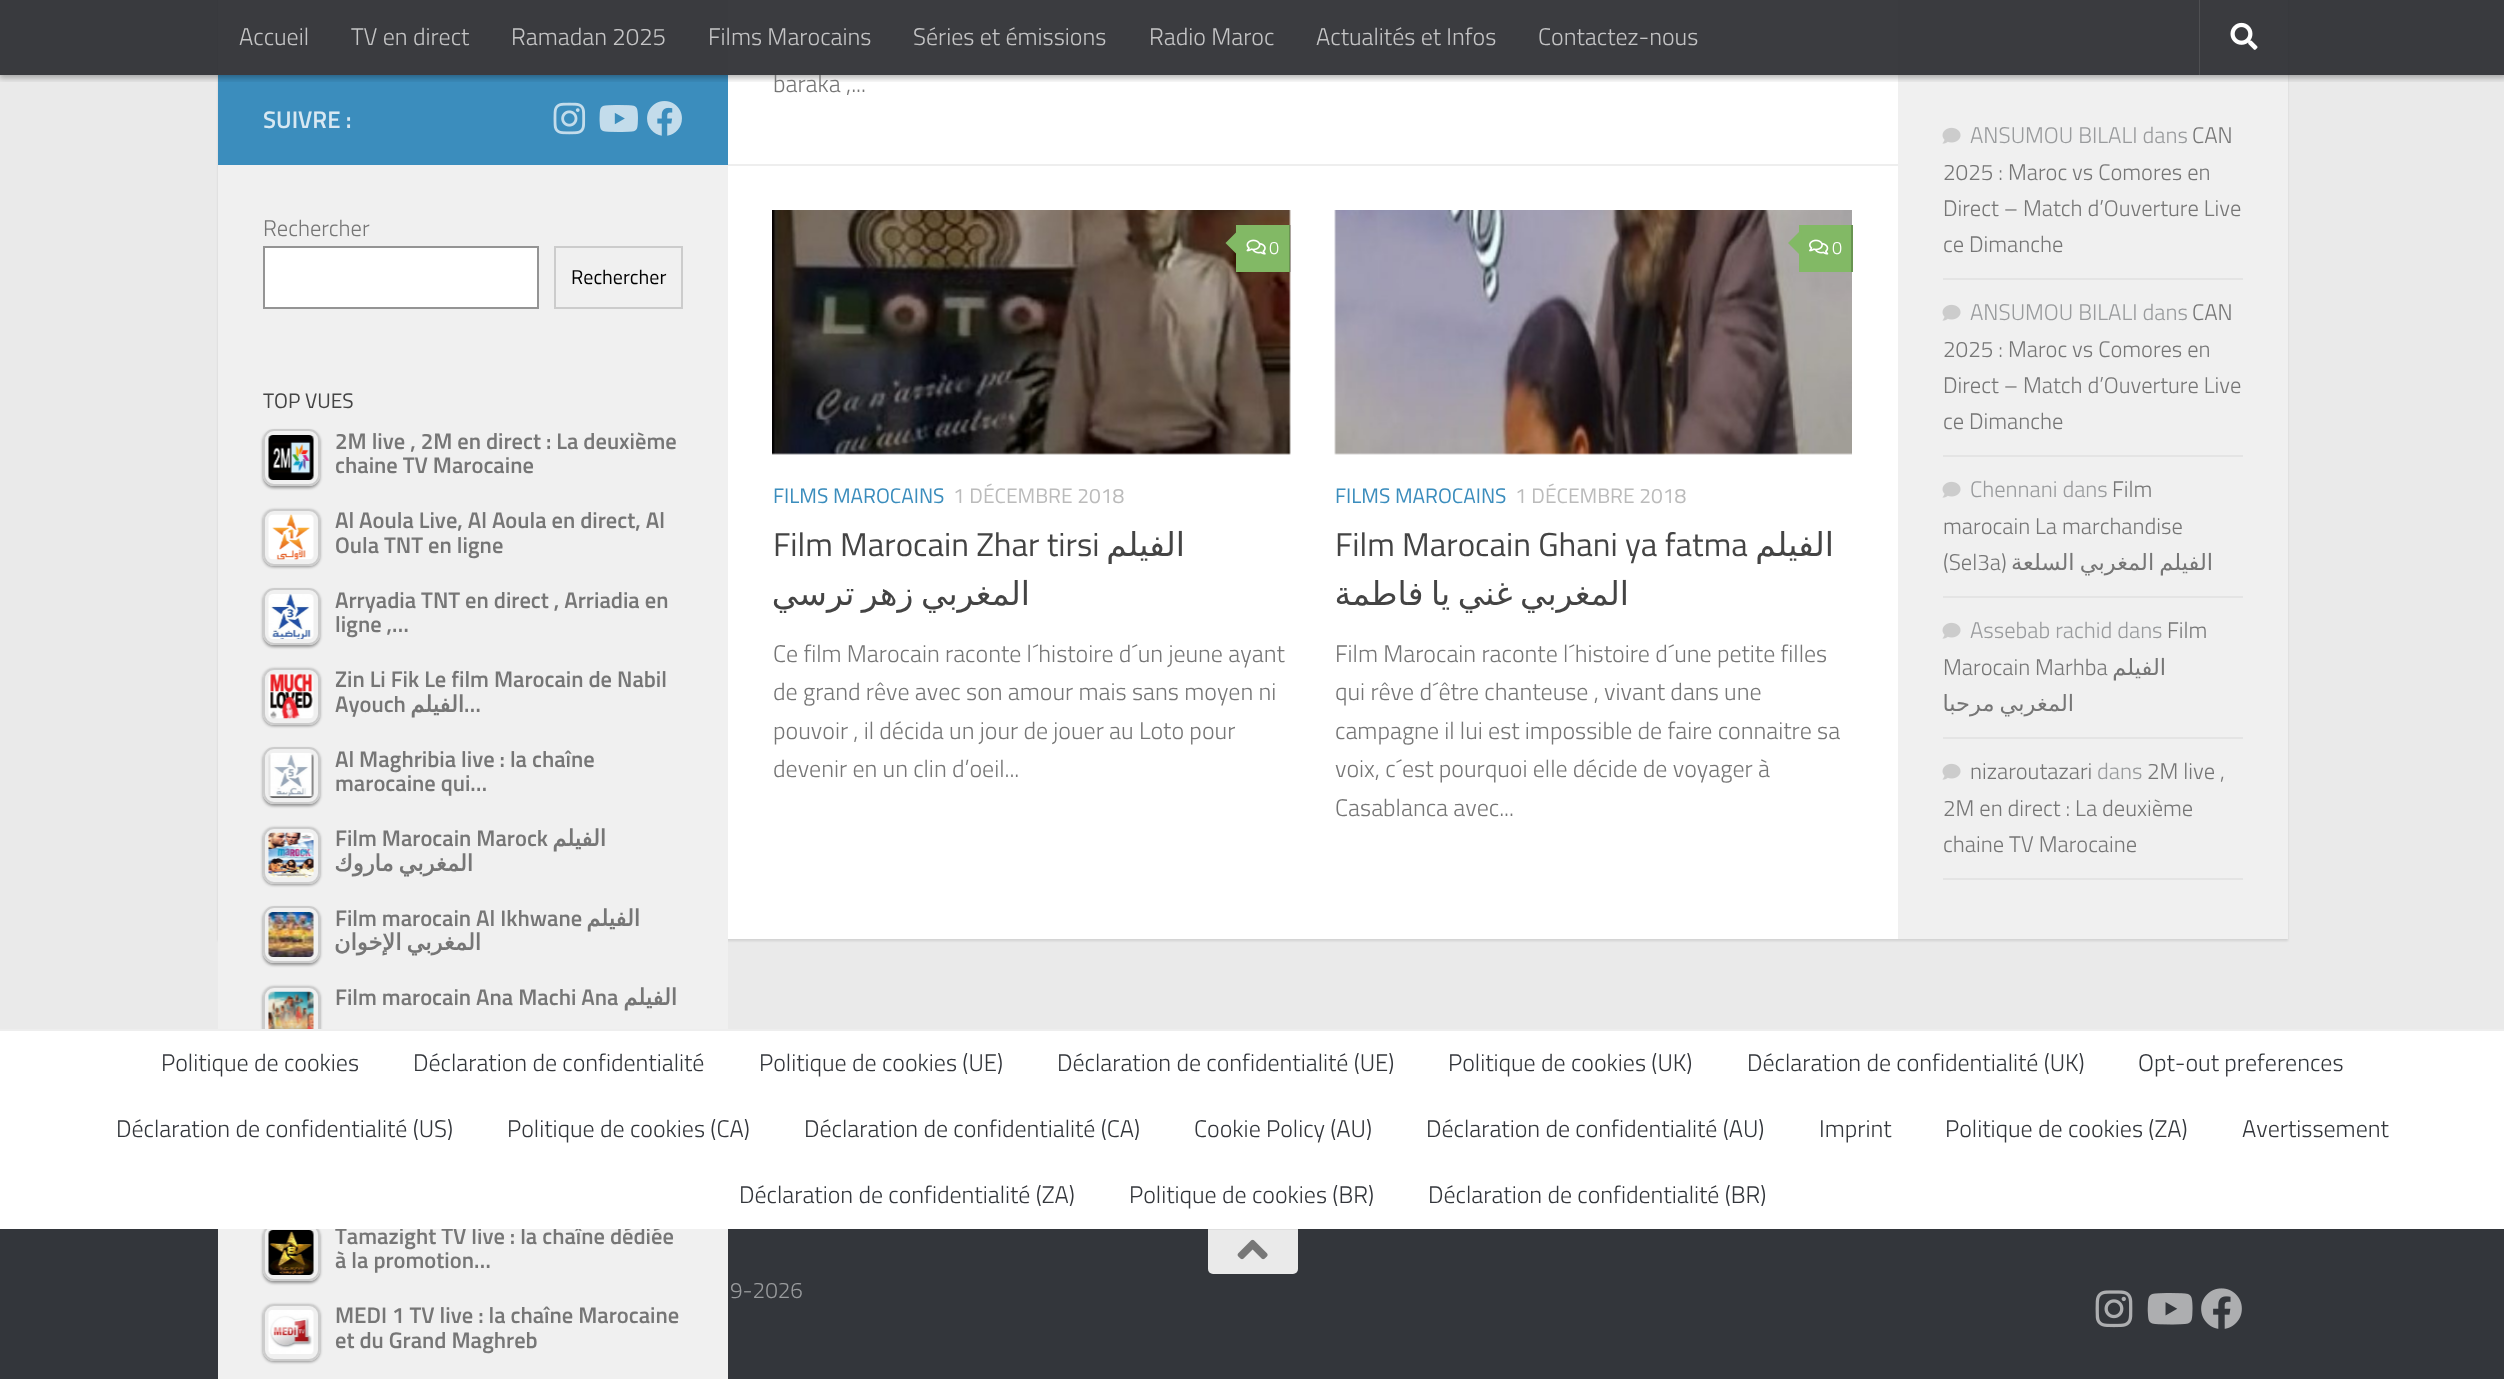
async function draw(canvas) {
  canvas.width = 2504;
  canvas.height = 1379;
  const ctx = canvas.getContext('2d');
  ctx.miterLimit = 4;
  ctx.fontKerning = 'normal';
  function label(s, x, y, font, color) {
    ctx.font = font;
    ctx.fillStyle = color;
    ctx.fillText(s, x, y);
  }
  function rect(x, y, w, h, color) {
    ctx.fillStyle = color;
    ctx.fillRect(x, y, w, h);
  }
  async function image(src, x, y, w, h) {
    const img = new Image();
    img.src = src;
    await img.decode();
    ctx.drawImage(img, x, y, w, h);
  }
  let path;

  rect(0, 0, 2504, 1379, '#eaeaea');
  ctx.fillStyle = '#0000001a';
  ctx.filter = 'blur(1px)';
  ctx.beginPath();
  ctx.rect(218, -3, 2070, 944);
  ctx.fill();
  ctx.filter = 'none';
  rect(728, 0, 1170, 939, '#fff');
  rect(218, 0, 510, 75, '#f0f0f0');
  rect(1898, 0, 390, 939, '#f0f0f0');
  rect(218, 75, 510, 90, '#3b8dbd');
  ctx.save();
  ctx.beginPath();
  ctx.rect(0, 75, 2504, 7);
  ctx.clip();
  ctx.fillStyle = '#0000004d';
  ctx.filter = 'blur(3px)';
  ctx.beginPath();
  ctx.rect(-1, 0, 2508, 78);
  ctx.fill();
  ctx.filter = 'none';
  ctx.restore();
  label('baraka ,...', 773, 92, '300 24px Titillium', '#767676');
  rect(0, 0, 2504, 75, '#26272be6');
  label('Accueil', 239, 45, '300 24px Titillium', '#c4c4c5');
  label('TV en direct', 351, 45, '300 24px Titillium', '#c4c4c5');
  label('Ramadan 2025', 511, 45, '300 24px Titillium', '#c4c4c5');
  label('Films Marocains', 708, 45, '300 24px Titillium', '#c4c4c5');
  label('Séries et émissions', 913, 45, '300 24px Titillium', '#c4c4c5');
  label('Radio Maroc', 1149, 45, '300 24px Titillium', '#c4c4c5');
  label('Actualités et Infos', 1316, 45, '300 24px Titillium', '#c4c4c5');
  label('Contactez-nous', 1538, 45, '300 24px Titillium', '#c4c4c5');
  rect(2199, 0, 1, 75, '#4e4f52');
  await image('assets/img1.png', 2230, 22, 28, 28);
  rect(0, 1229, 2504, 150, '#33363b');
  rect(218, 165, 510, 1214, '#f0f0f0');
  label('SUIVRE :', 263, 128, '600 24px Titillium', '#d8e8f2');
  await image('assets/img2.png', 553, 102, 33, 33);
  await image('assets/img3.png', 599, 105, 39, 27);
  await image('assets/img4.png', 647, 101, 35, 35);
  label('Rechercher', 263, 236, '300 22.5px Titillium', '#767676');
  ctx.fillStyle = '#fff';
  ctx.beginPath();
  ctx.rect(264, 247, 274, 61);
  ctx.fill();
  ctx.strokeStyle = '#949494';
  ctx.lineWidth = 2;
  ctx.stroke();
  ctx.strokeStyle = '#ccc';
  ctx.strokeRect(555, 247, 127, 61);
  label('Rechercher', 571, 284, '20px Titillium', '#000');
  label('TOP VUES', 263, 408, '21px Titillium', '#444');
  ctx.save();
  path = new Path2D('M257 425H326V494H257ZM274 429H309C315 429 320 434 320 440V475C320 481 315 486 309 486H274C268 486 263 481 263 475V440C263 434 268 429 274 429Z');
  ctx.clip(path, 'evenodd');
  ctx.fillStyle = '#00000066';
  ctx.filter = 'blur(1.5px)';
  ctx.beginPath();
  ctx.roundRect(263, 431, 57, 57, 11);
  ctx.fill();
  ctx.filter = 'none';
  ctx.restore();
  ctx.beginPath();
  ctx.roundRect(264, 430, 55, 55, 10);
  ctx.stroke();
  await image('assets/img5.png', 268, 435, 46, 45);
  label('2M live , 2M en direct : La deuxième', 335, 449, '600 22.5px Titillium', '#767676');
  label('chaine TV Marocaine', 335, 473, '600 22.5px Titillium', '#767676');
  ctx.save();
  path = new Path2D('M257 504H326V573H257ZM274 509H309C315 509 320 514 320 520V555C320 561 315 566 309 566H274C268 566 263 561 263 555V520C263 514 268 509 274 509Z');
  ctx.clip(path, 'evenodd');
  ctx.fillStyle = '#00000066';
  ctx.filter = 'blur(1.5px)';
  ctx.beginPath();
  ctx.roundRect(263, 510, 57, 57, 11);
  ctx.fill();
  ctx.filter = 'none';
  ctx.restore();
  ctx.beginPath();
  ctx.roundRect(264, 510, 55, 55, 10);
  ctx.stroke();
  await image('assets/img6.png', 268, 514, 46, 46);
  label('Al Aoula Live, Al Aoula en direct, Al', 335, 528, '600 22.5px Titillium', '#767676');
  label('Oula TNT en ligne', 335, 553, '600 22.5px Titillium', '#767676');
  ctx.save();
  path = new Path2D('M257 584H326V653H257ZM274 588H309C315 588 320 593 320 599V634C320 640 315 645 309 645H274C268 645 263 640 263 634V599C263 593 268 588 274 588Z');
  ctx.clip(path, 'evenodd');
  ctx.fillStyle = '#00000066';
  ctx.filter = 'blur(1.5px)';
  ctx.beginPath();
  ctx.roundRect(263, 590, 57, 57, 11);
  ctx.fill();
  ctx.filter = 'none';
  ctx.restore();
  ctx.beginPath();
  ctx.roundRect(264, 589, 55, 55, 10);
  ctx.stroke();
  await image('assets/img7.png', 268, 594, 46, 45);
  label('Arryadia TNT en direct , Arriadia en', 335, 608, '600 22.5px Titillium', '#767676');
  label('ligne ,…', 335, 632, '600 22.5px Titillium', '#767676');
  ctx.save();
  path = new Path2D('M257 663H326V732H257ZM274 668H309C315 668 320 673 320 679V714C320 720 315 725 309 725H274C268 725 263 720 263 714V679C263 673 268 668 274 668Z');
  ctx.clip(path, 'evenodd');
  ctx.fillStyle = '#00000066';
  ctx.filter = 'blur(1.5px)';
  ctx.beginPath();
  ctx.roundRect(263, 669, 57, 57, 11);
  ctx.fill();
  ctx.filter = 'none';
  ctx.restore();
  ctx.beginPath();
  ctx.roundRect(264, 669, 55, 55, 10);
  ctx.stroke();
  await image('assets/img8.png', 268, 673, 46, 46);
  label('Zin Li Fik Le film Marocain de Nabil', 335, 687, '600 22.5px Titillium', '#767676');
  label('Ayouch', 335, 712, '600 22.5px Titillium', '#767676');
  ctx.direction = 'rtl';
  label('الفيلم', 464, 712, 'bold 22.5px DejaVu Sans', '#767676');
  ctx.direction = 'ltr';
  label('…', 464, 712, '600 22.5px Titillium', '#767676');
  ctx.save();
  path = new Path2D('M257 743H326V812H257ZM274 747H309C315 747 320 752 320 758V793C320 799 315 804 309 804H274C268 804 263 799 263 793V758C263 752 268 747 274 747Z');
  ctx.clip(path, 'evenodd');
  ctx.fillStyle = '#00000066';
  ctx.filter = 'blur(1.5px)';
  ctx.beginPath();
  ctx.roundRect(263, 749, 57, 57, 11);
  ctx.fill();
  ctx.filter = 'none';
  ctx.restore();
  ctx.beginPath();
  ctx.roundRect(264, 748, 55, 55, 10);
  ctx.stroke();
  await image('assets/img9.png', 268, 753, 46, 45);
  label('Al Maghribia live : la chaîne', 335, 767, '600 22.5px Titillium', '#767676');
  label('marocaine qui…', 335, 791, '600 22.5px Titillium', '#767676');
  ctx.save();
  path = new Path2D('M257 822H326V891H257ZM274 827H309C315 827 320 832 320 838V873C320 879 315 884 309 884H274C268 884 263 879 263 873V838C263 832 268 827 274 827Z');
  ctx.clip(path, 'evenodd');
  ctx.fillStyle = '#00000066';
  ctx.filter = 'blur(1.5px)';
  ctx.beginPath();
  ctx.roundRect(263, 828, 57, 57, 11);
  ctx.fill();
  ctx.filter = 'none';
  ctx.restore();
  ctx.beginPath();
  ctx.roundRect(264, 828, 55, 55, 10);
  ctx.stroke();
  await image('assets/img10.png', 268, 832, 46, 46);
  label('Film Marocain Marock', 335, 846, '600 22.5px Titillium', '#767676');
  ctx.direction = 'rtl';
  label('الفيلم', 606, 846, 'bold 22.5px DejaVu Sans', '#767676');
  ctx.wordSpacing = '-2px';
  label('المغربي ماروك', 473, 871, 'bold 22.5px DejaVu Sans', '#767676');
  ctx.save();
  path = new Path2D('M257 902H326V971H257ZM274 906H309C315 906 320 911 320 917V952C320 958 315 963 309 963H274C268 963 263 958 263 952V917C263 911 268 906 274 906Z');
  ctx.clip(path, 'evenodd');
  ctx.fillStyle = '#00000066';
  ctx.filter = 'blur(1.5px)';
  ctx.beginPath();
  ctx.roundRect(263, 908, 57, 57, 11);
  ctx.fill();
  ctx.filter = 'none';
  ctx.restore();
  ctx.beginPath();
  ctx.roundRect(264, 907, 55, 55, 10);
  ctx.stroke();
  await image('assets/img11.png', 268, 912, 46, 45);
  ctx.wordSpacing = '0px';
  ctx.direction = 'ltr';
  label('Film marocain Al Ikhwane', 335, 926, '600 22.5px Titillium', '#767676');
  ctx.direction = 'rtl';
  label('الفيلم', 640, 926, 'bold 22.5px DejaVu Sans', '#767676');
  ctx.wordSpacing = '-2px';
  label('المغربي الإخوان', 481, 950, 'bold 22.5px DejaVu Sans', '#767676');
  ctx.save();
  path = new Path2D('M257 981H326V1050H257ZM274 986H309C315 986 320 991 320 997V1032C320 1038 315 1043 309 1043H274C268 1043 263 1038 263 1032V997C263 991 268 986 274 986Z');
  ctx.clip(path, 'evenodd');
  ctx.fillStyle = '#00000066';
  ctx.filter = 'blur(1.5px)';
  ctx.beginPath();
  ctx.roundRect(263, 987, 57, 57, 11);
  ctx.fill();
  ctx.filter = 'none';
  ctx.restore();
  ctx.beginPath();
  ctx.roundRect(264, 987, 55, 55, 10);
  ctx.stroke();
  await image('assets/img12.png', 268, 991, 46, 38);
  ctx.wordSpacing = '0px';
  ctx.direction = 'ltr';
  label('Film marocain Ana Machi Ana', 335, 1005, '600 22.5px Titillium', '#767676');
  ctx.direction = 'rtl';
  label('الفيلم', 677, 1005, 'bold 22.5px DejaVu Sans', '#767676');
  ctx.save();
  path = new Path2D('M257 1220H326V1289H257ZM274 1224H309C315 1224 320 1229 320 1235V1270C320 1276 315 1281 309 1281H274C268 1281 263 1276 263 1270V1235C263 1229 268 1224 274 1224Z');
  ctx.clip(path, 'evenodd');
  ctx.fillStyle = '#00000066';
  ctx.filter = 'blur(1.5px)';
  ctx.beginPath();
  ctx.roundRect(263, 1226, 57, 57, 11);
  ctx.fill();
  ctx.filter = 'none';
  ctx.restore();
  ctx.beginPath();
  ctx.roundRect(264, 1225, 55, 55, 10);
  ctx.stroke();
  await image('assets/img13.png', 268, 1230, 46, 45);
  ctx.direction = 'ltr';
  label('Tamazight TV live : la chaîne dédiée', 335, 1244, '600 22.5px Titillium', '#767676');
  label('à la promotion…', 335, 1268, '600 22.5px Titillium', '#767676');
  ctx.save();
  path = new Path2D('M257 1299H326V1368H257ZM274 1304H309C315 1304 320 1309 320 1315V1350C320 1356 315 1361 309 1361H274C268 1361 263 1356 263 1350V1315C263 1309 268 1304 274 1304Z');
  ctx.clip(path, 'evenodd');
  ctx.fillStyle = '#00000066';
  ctx.filter = 'blur(1.5px)';
  ctx.beginPath();
  ctx.roundRect(263, 1305, 57, 57, 11);
  ctx.fill();
  ctx.filter = 'none';
  ctx.restore();
  ctx.beginPath();
  ctx.roundRect(264, 1305, 55, 55, 10);
  ctx.stroke();
  await image('assets/img14.png', 268, 1310, 46, 44);
  label('MEDI 1 TV live : la chaîne Marocaine', 335, 1323, '600 22.5px Titillium', '#767676');
  label('et du Grand Maghreb', 335, 1348, '600 22.5px Titillium', '#767676');
  rect(728, 164, 1170, 2, '#eee');
  await image('assets/img15.png', 772, 210, 519, 245);
  rect(1236, 225, 54, 47, '#82b965');
  rect(1289, 225, 2, 47, '#00000033');
  ctx.fillStyle = '#82b965';
  path = new Path2D('M1239 229.5V256.5L1225.5 243Z');
  ctx.fill(path);
  await image('assets/img16.png', 1246, 239, 20, 16);
  label('0', 1269, 254, '300 18px Titillium', '#fff');
  label('FILMS MAROCAINS', 773, 503, '21px Titillium', '#3b8dbd');
  label('1 DÉCEMBRE 2018', 953, 503, '21px Titillium', '#bbb');
  label('Film Marocain Zhar tirsi', 773, 556, '33px Titillium', '#444');
  ctx.direction = 'rtl';
  label('الفيلم', 1185, 556, '33px DejaVu Sans', '#444');
  ctx.wordSpacing = '-3px';
  label('المغربي زهر ترسي', 1030, 605, '33px DejaVu Sans', '#444');
  ctx.wordSpacing = '0px';
  ctx.direction = 'ltr';
  label('Ce film Marocain raconte l´histoire d´un jeune ayant', 773, 662, '300 24px Titillium', '#767676');
  label('de grand rêve avec son amour mais sans moyen ni', 773, 700, '300 24px Titillium', '#767676');
  label('pouvoir , il décida un jour de jouer au Loto pour', 773, 739, '300 24px Titillium', '#767676');
  label('devenir en un clin d’oeil...', 773, 777, '300 24px Titillium', '#767676');
  await image('assets/img17.png', 1334, 210, 518, 245);
  rect(1799, 225, 52, 47, '#82b965');
  rect(1851, 225, 2, 47, '#689451');
  ctx.fillStyle = '#82b965';
  path = new Path2D('M1801.5 229.5V256.5L1788 243Z');
  ctx.fill(path);
  await image('assets/img18.png', 1809, 239, 20, 16);
  label('0', 1832, 254, '300 18px Titillium', '#fff');
  label('FILMS MAROCAINS', 1335, 503, '21px Titillium', '#3b8dbd');
  label('1 DÉCEMBRE 2018', 1515, 503, '21px Titillium', '#bbb');
  label('Film Marocain Ghani ya fatma', 1335, 556, '33px Titillium', '#444');
  ctx.direction = 'rtl';
  label('الفيلم', 1834, 556, '33px DejaVu Sans', '#444');
  ctx.wordSpacing = '-3px';
  label('المغربي غني يا فاطمة', 1629, 605, '33px DejaVu Sans', '#444');
  ctx.wordSpacing = '0px';
  ctx.direction = 'ltr';
  label('Film Marocain raconte l´histoire d´une petite filles', 1335, 662, '300 24px Titillium', '#767676');
  label('qui rêve d´être chanteuse , vivant dans une', 1335, 700, '300 24px Titillium', '#767676');
  label('campagne il lui est impossible de faire connaitre sa', 1335, 739, '300 24px Titillium', '#767676');
  label('voix, c´est pourquoi elle décide de voyager à', 1335, 777, '300 24px Titillium', '#767676');
  label('Casablanca avec...', 1335, 816, '300 24px Titillium', '#767676');
  rect(1943, 278, 300, 2, '#e4e4e4');
  await image('assets/img19.png', 1942, 127, 19, 17);
  label('ANSUMOU BILALI dans', 1970, 143, '300 22.5px Titillium', '#999b9d');
  label('CAN', 2192, 143, '300 22.5px Titillium', '#767676');
  label('2025 : Maroc vs Comores en', 1943, 180, '300 22.5px Titillium', '#767676');
  label('Direct – Match d’Ouverture Live', 1943, 216, '300 22.5px Titillium', '#767676');
  label('ce Dimanche', 1943, 252, '300 22.5px Titillium', '#767676');
  rect(1943, 455, 300, 2, '#e4e4e4');
  await image('assets/img19.png', 1942, 304, 19, 17);
  label('ANSUMOU BILALI dans', 1970, 320, '300 22.5px Titillium', '#999b9d');
  label('CAN', 2192, 320, '300 22.5px Titillium', '#767676');
  label('2025 : Maroc vs Comores en', 1943, 357, '300 22.5px Titillium', '#767676');
  label('Direct – Match d’Ouverture Live', 1943, 393, '300 22.5px Titillium', '#767676');
  label('ce Dimanche', 1943, 429, '300 22.5px Titillium', '#767676');
  rect(1943, 596, 300, 2, '#e4e4e4');
  await image('assets/img19.png', 1942, 481, 19, 17);
  label('Chennani dans', 1970, 497, '300 22.5px Titillium', '#999b9d');
  label('Film', 2112, 497, '300 22.5px Titillium', '#767676');
  label('marocain La marchandise', 1943, 534, '300 22.5px Titillium', '#767676');
  label('(Sel3a)', 1943, 570, '300 22.5px Titillium', '#767676');
  ctx.wordSpacing = '-2px';
  ctx.direction = 'rtl';
  label('الفيلم المغربي السلعة', 2213, 570, '22.5px DejaVu Sans', '#767676');
  rect(1943, 737, 300, 2, '#e4e4e4');
  await image('assets/img19.png', 1942, 622, 19, 17);
  ctx.wordSpacing = '0px';
  ctx.direction = 'ltr';
  label('Assebab rachid dans', 1970, 638, '300 22.5px Titillium', '#999b9d');
  label('Film', 2167, 638, '300 22.5px Titillium', '#767676');
  label('Marocain Marhba', 1943, 675, '300 22.5px Titillium', '#767676');
  ctx.direction = 'rtl';
  label('الفيلم', 2166, 675, '22.5px DejaVu Sans', '#767676');
  ctx.wordSpacing = '-2px';
  label('المغربي مرحبا', 2074, 711, '22.5px DejaVu Sans', '#767676');
  rect(1943, 878, 300, 2, '#e4e4e4');
  await image('assets/img19.png', 1942, 763, 19, 17);
  ctx.wordSpacing = '0px';
  ctx.direction = 'ltr';
  label('nizaroutazari', 1970, 779, '300 22.5px Titillium', '#767676');
  label('dans', 2097, 779, '300 22.5px Titillium', '#999b9d');
  label('2M live ,', 2147, 779, '300 22.5px Titillium', '#767676');
  label('2M en direct : La deuxième', 1943, 816, '300 22.5px Titillium', '#767676');
  label('chaine TV Marocaine', 1943, 852, '300 22.5px Titillium', '#767676');
  rect(0, 1031, 2504, 198, '#fff');
  rect(0, 1029, 2504, 2, '#eee');
  label('Politique de cookies', 161, 1071, '300 24px Titillium', '#33363b');
  label('Déclaration de confidentialité', 413, 1071, '300 24px Titillium', '#33363b');
  label('Politique de cookies (UE)', 759, 1071, '300 24px Titillium', '#33363b');
  label('Déclaration de confidentialité (UE)', 1057, 1071, '300 24px Titillium', '#33363b');
  label('Politique de cookies (UK)', 1448, 1071, '300 24px Titillium', '#33363b');
  label('Déclaration de confidentialité (UK)', 1747, 1071, '300 24px Titillium', '#33363b');
  label('Opt-out preferences', 2138, 1071, '300 24px Titillium', '#33363b');
  label('Déclaration de confidentialité (US)', 116, 1137, '300 24px Titillium', '#33363b');
  label('Politique de cookies (CA)', 507, 1137, '300 24px Titillium', '#33363b');
  label('Déclaration de confidentialité (CA)', 804, 1137, '300 24px Titillium', '#33363b');
  label('Cookie Policy (AU)', 1194, 1137, '300 24px Titillium', '#33363b');
  label('Déclaration de confidentialité (AU)', 1426, 1137, '300 24px Titillium', '#33363b');
  label('Imprint', 1819, 1137, '300 24px Titillium', '#33363b');
  label('Politique de cookies (ZA)', 1945, 1137, '300 24px Titillium', '#33363b');
  label('Avertissement', 2242, 1137, '300 24px Titillium', '#33363b');
  label('Déclaration de confidentialité (ZA)', 739, 1203, '300 24px Titillium', '#33363b');
  label('Politique de cookies (BR)', 1129, 1203, '300 24px Titillium', '#33363b');
  label('Déclaration de confidentialité (BR)', 1428, 1203, '300 24px Titillium', '#33363b');
  ctx.fillStyle = '#eaeaea';
  ctx.beginPath();
  ctx.roundRect(1208, 1229, 90, 45, [0, 0, 5, 5]);
  ctx.fill();
  rect(1208, 1229, 90, 1, '#dedede');
  await image('assets/img20.png', 1237, 1239, 31, 21);
  label('9-2026', 730, 1298, '300 22.5px Titillium', '#999b9d');
  await image('assets/img21.png', 2095, 1290, 38, 38);
  await image('assets/img22.png', 2147, 1293, 46, 32);
  await image('assets/img23.png', 2201, 1288, 41, 41);
}

draw(document.querySelector('canvas'));
